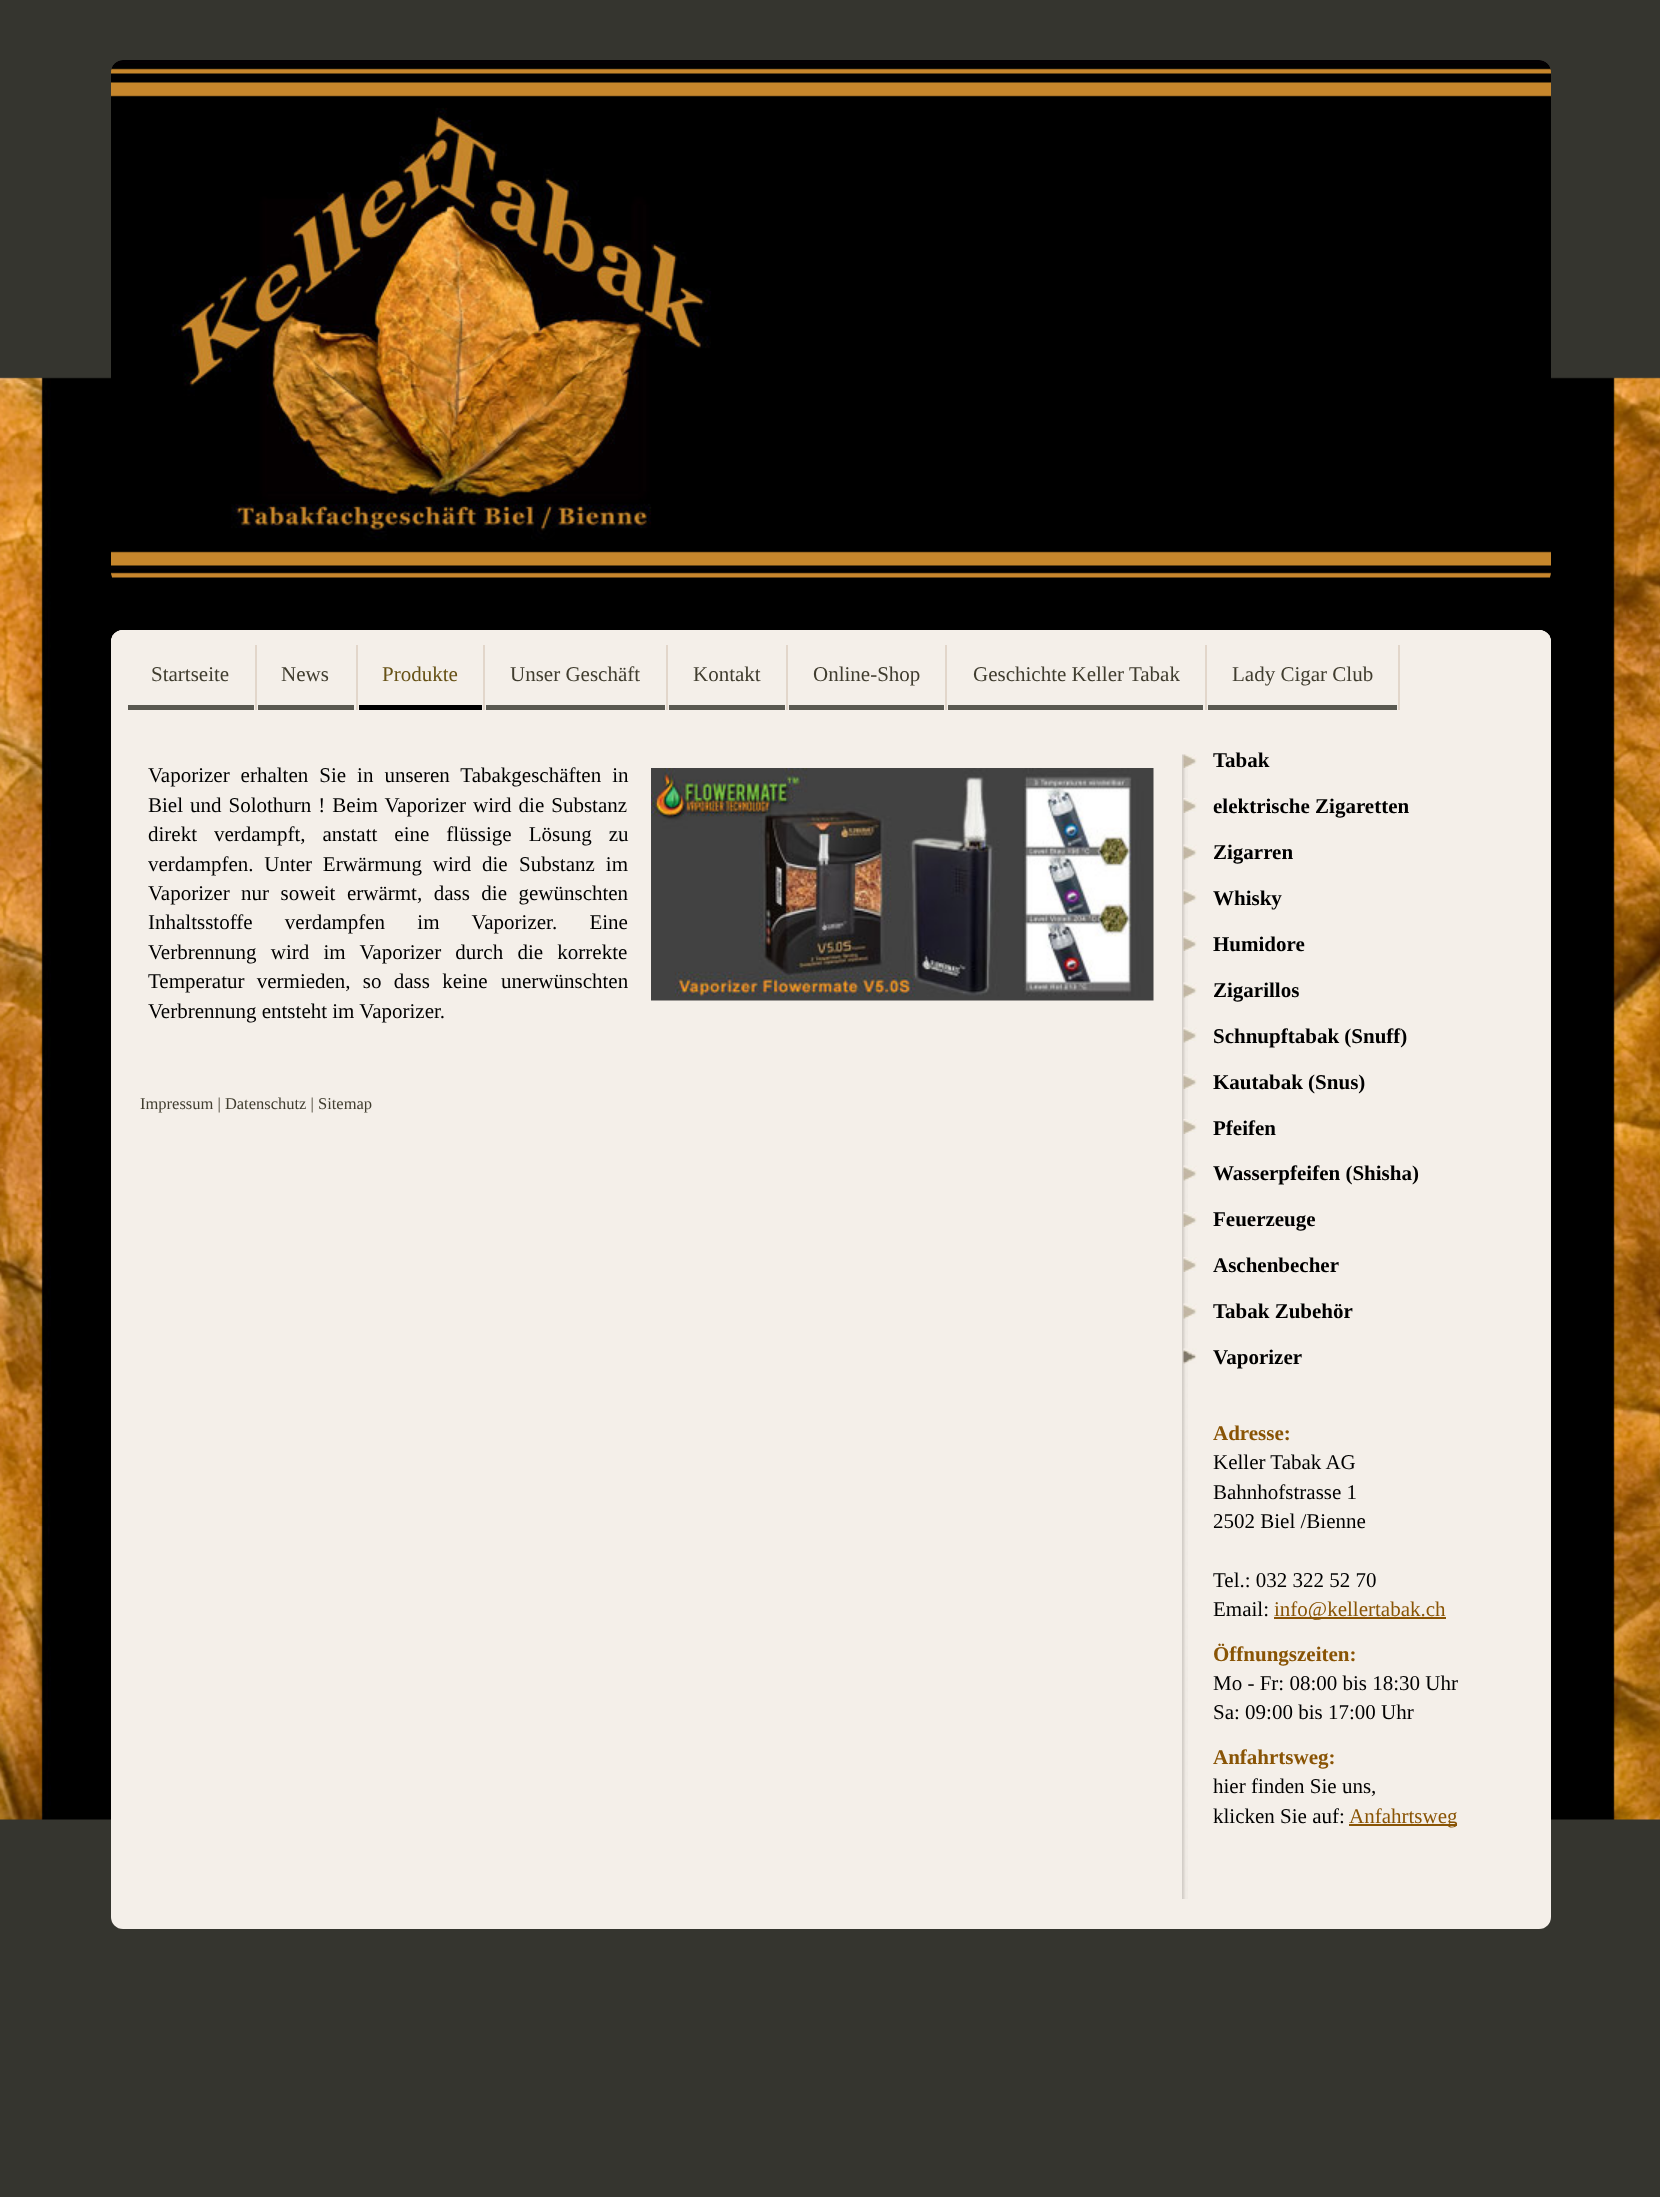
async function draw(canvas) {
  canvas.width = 1660;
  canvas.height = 2197;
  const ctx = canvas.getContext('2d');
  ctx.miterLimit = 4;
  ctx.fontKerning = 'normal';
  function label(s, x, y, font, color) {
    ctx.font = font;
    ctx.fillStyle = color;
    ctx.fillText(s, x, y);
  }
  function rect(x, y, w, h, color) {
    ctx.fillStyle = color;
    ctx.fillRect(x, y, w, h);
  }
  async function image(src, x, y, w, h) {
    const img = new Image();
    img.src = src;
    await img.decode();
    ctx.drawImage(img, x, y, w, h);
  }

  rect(0, 0, 1660, 2197, '#35352f');
  await image('assets/img1.png', 0, 377, 1660, 1443);
  await image('assets/img2.png', 111, 60, 1440, 518);
  ctx.fillStyle = '#f4efe9';
  ctx.beginPath();
  ctx.roundRect(111, 630, 1440, 95, [12, 12, 0, 0]);
  ctx.fill();
  ctx.beginPath();
  ctx.roundRect(111, 630, 1440, 15, [12, 12, 0, 0]);
  ctx.fill();
  ctx.beginPath();
  ctx.roundRect(1536, 630, 15, 95, [0, 12, 0, 0]);
  ctx.fill();
  ctx.beginPath();
  ctx.roundRect(111, 630, 15, 95, [12, 0, 0, 0]);
  ctx.fill();
  rect(255, 645, 2, 65, '#e2d6ca');
  rect(128, 705, 126, 5, '#595850');
  label('Startseite', 151, 681, '21px Liberation Serif', '#403d2f');
  rect(356, 645, 2, 65, '#e2d6ca');
  rect(258, 705, 96, 5, '#595850');
  label('News', 281, 681, '21px Liberation Serif', '#403d2f');
  rect(483, 645, 2, 65, '#e2d6ca');
  rect(359, 705, 123, 5, '#000');
  label('Produkte', 382, 681, '21px Liberation Serif', '#665115');
  rect(666, 645, 2, 65, '#e2d6ca');
  rect(486, 705, 179, 5, '#595850');
  label('Unser Geschäft', 510, 681, '21px Liberation Serif', '#403d2f');
  rect(786, 645, 2, 65, '#e2d6ca');
  rect(669, 705, 116, 5, '#595850');
  label('Kontakt', 693, 681, '21px Liberation Serif', '#403d2f');
  rect(945, 645, 2, 65, '#e2d6ca');
  rect(789, 705, 155, 5, '#595850');
  label('Online-Shop', 813, 681, '21px Liberation Serif', '#403d2f');
  rect(1205, 645, 2, 65, '#e2d6ca');
  rect(948, 705, 255, 5, '#595850');
  label('Geschichte Keller Tabak', 973, 681, '21px Liberation Serif', '#403d2f');
  rect(1398, 645, 2, 65, '#e2d6ca');
  rect(1208, 705, 189, 5, '#595850');
  label('Lady Cigar Club', 1232, 681, '21px Liberation Serif', '#403d2f');
  ctx.fillStyle = '#f4efe9';
  ctx.beginPath();
  ctx.roundRect(111, 725, 1440, 1204, [0, 0, 12, 12]);
  ctx.fill();
  await image('assets/img3.png', 1182, 754, 6, 1145);
  ctx.wordSpacing = '5.75px';
  label('Vaporizer erhalten Sie in unseren Tabakgeschäften in', 148, 782, '21px Liberation Serif', '#000');
  ctx.wordSpacing = '1.75px';
  label('Biel und Solothurn ! Beim Vaporizer wird die Substanz', 148, 812, '21px Liberation Serif', '#000');
  ctx.wordSpacing = '11.75px';
  label('direkt verdampft, anstatt eine flüssige Lösung zu', 148, 841, '21px Liberation Serif', '#000');
  ctx.wordSpacing = '5.5px';
  label('verdampfen. Unter Erwärmung wird die', 148, 871, '21px Liberation Serif', '#000');
  ctx.wordSpacing = '5.75px';
  label('Substanz im', 519, 871, '21px Liberation Serif', '#000');
  ctx.wordSpacing = '6.25px';
  label('Vaporizer nur soweit erwärmt, dass die gewünschten', 148, 900, '21px Liberation Serif', '#000');
  ctx.wordSpacing = '27px';
  label('Inhaltsstoffe verdampfen im Vaporizer. Eine', 148, 929, '21px Liberation Serif', '#000');
  ctx.wordSpacing = '9px';
  label('Verbrennung wird im Vaporizer durch die korrekte', 148, 959, '21px Liberation Serif', '#000');
  ctx.wordSpacing = '7px';
  label('Temperatur vermieden, so dass keine', 148, 988, '21px Liberation Serif', '#000');
  ctx.wordSpacing = '0px';
  label('unerwünschten', 501, 988, '21px Liberation Serif', '#000');
  label('Verbrennung entsteht im Vaporizer.', 148, 1018, '21px Liberation Serif', '#000');
  await image('assets/img4.png', 651, 768, 503, 233);
  await image('assets/img5.png', 1183, 754, 14, 14);
  label('Tabak', 1213, 767, 'bold 21px Liberation Serif', '#000');
  await image('assets/img6.png', 1183, 798, 14, 15);
  label('elektrische Zigaretten', 1213, 813, 'bold 21px Liberation Serif', '#000');
  await image('assets/img7.png', 1183, 844, 14, 16);
  label('Zigarren', 1213, 859, 'bold 21px Liberation Serif', '#000');
  await image('assets/img8.png', 1183, 889, 14, 16);
  label('Whisky', 1213, 905, 'bold 21px Liberation Serif', '#000');
  await image('assets/img6.png', 1183, 936, 14, 15);
  label('Humidore', 1213, 951, 'bold 21px Liberation Serif', '#000');
  await image('assets/img7.png', 1183, 982, 14, 16);
  label('Zigarillos', 1213, 997, 'bold 21px Liberation Serif', '#000');
  await image('assets/img9.png', 1183, 1027, 14, 16);
  label('Schnupftabak (Snuff)', 1213, 1043, 'bold 21px Liberation Serif', '#000');
  await image('assets/img6.png', 1183, 1074, 14, 15);
  label('Kautabak (Snus)', 1213, 1089, 'bold 21px Liberation Serif', '#000');
  await image('assets/img6.png', 1183, 1119, 14, 15);
  label('Pfeifen', 1213, 1135, 'bold 21px Liberation Serif', '#000');
  await image('assets/img10.png', 1183, 1165, 14, 16);
  label('Wasserpfeifen (Shisha)', 1213, 1180, 'bold 21px Liberation Serif', '#000');
  await image('assets/img11.png', 1183, 1212, 14, 15);
  label('Feuerzeuge', 1213, 1226, 'bold 21px Liberation Serif', '#000');
  await image('assets/img11.png', 1183, 1257, 14, 15);
  label('Aschenbecher', 1213, 1272, 'bold 21px Liberation Serif', '#000');
  await image('assets/img12.png', 1183, 1303, 14, 16);
  label('Tabak Zubehör', 1213, 1318, 'bold 21px Liberation Serif', '#000');
  await image('assets/img13.png', 1183, 1348, 14, 16);
  label('Vaporizer', 1213, 1364, 'bold 21px Liberation Serif', '#000');
  label('Adresse:', 1213, 1440, 'bold 21px Liberation Serif', '#895405');
  label('Keller Tabak AG', 1213, 1469, '21px Liberation Serif', '#000');
  label('Bahnhofstrasse 1', 1213, 1499, '21px Liberation Serif', '#000');
  label('2502 Biel /Bienne', 1213, 1528, '21px Liberation Serif', '#000');
  label('Tel.: 032 322 52 70', 1213, 1587, '21px Liberation Serif', '#000');
  label('Email:', 1213, 1616, '21px Liberation Serif', '#000');
  rect(1274, 1617, 172, 2, '#895405');
  label('info@kellertabak.ch', 1274, 1616, '21px Liberation Serif', '#895405');
  label('Öffnungszeiten:', 1213, 1661, 'bold 21px Liberation Serif', '#895405');
  label('Mo - Fr: 08:00 bis 18:30 Uhr', 1213, 1690, '21px Liberation Serif', '#000');
  label('Sa: 09:00 bis 17:00 Uhr', 1213, 1719, '21px Liberation Serif', '#000');
  label('Anfahrtsweg:', 1213, 1764, 'bold 21px Liberation Serif', '#895405');
  label('hier finden Sie uns,', 1213, 1793, '21px Liberation Serif', '#000');
  label('klicken Sie auf:', 1213, 1823, '21px Liberation Serif', '#000');
  rect(1349, 1824, 108, 2, '#895405');
  label('Anfahrtsweg', 1349, 1823, '21px Liberation Serif', '#895405');
  label('Impressum | Datenschutz | Sitemap', 140, 1109, '16.5px Liberation Serif', '#403d2f');
}

draw(document.querySelector('canvas'));
